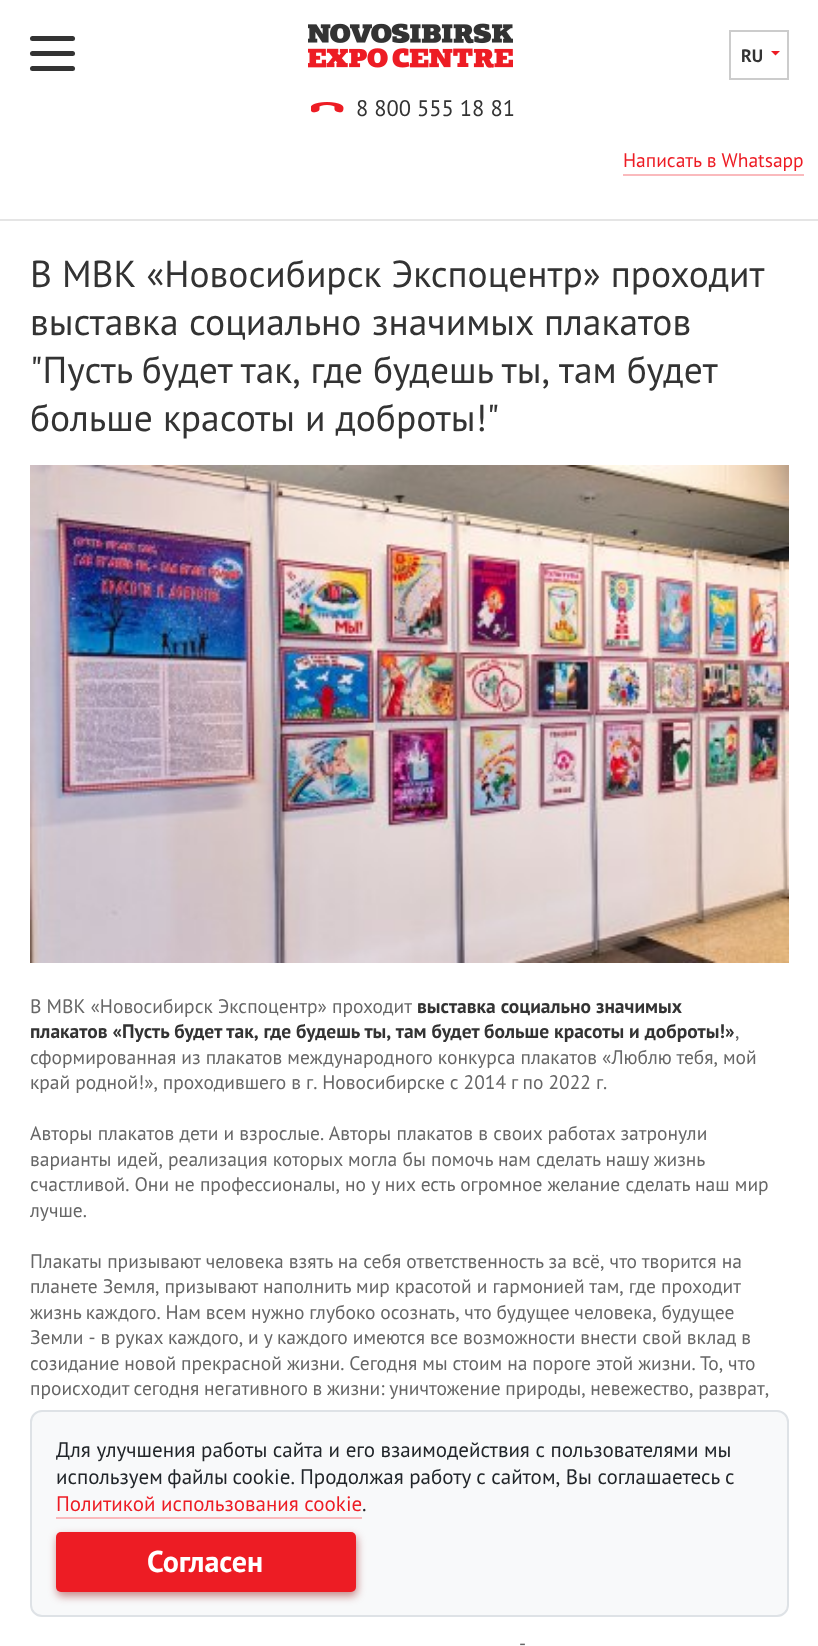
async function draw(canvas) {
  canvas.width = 818;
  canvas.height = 1646;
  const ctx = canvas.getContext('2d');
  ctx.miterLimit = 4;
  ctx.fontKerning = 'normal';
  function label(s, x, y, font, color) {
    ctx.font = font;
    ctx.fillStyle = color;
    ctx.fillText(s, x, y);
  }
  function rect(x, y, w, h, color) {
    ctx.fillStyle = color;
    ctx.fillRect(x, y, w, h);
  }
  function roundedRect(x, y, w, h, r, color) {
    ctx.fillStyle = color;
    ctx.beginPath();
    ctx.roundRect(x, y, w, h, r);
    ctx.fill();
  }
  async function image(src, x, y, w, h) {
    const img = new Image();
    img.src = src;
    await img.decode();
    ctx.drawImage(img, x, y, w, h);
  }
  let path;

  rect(0, 0, 818, 1646, '#fff');
  roundedRect(30, 51, 45, 5, 2.5, '#333');
  roundedRect(30, 36, 45, 5, 2.5, '#333');
  roundedRect(30, 66, 45, 5, 2.5, '#333');
  rect(0, 219, 818, 2, '#e5e5e5');
  await image('assets/img1.png', 308, 23, 205, 45);
  ctx.strokeStyle = '#ccc';
  ctx.lineWidth = 2;
  ctx.strokeRect(730, 31, 58, 48);
  label('RU', 741, 62, 'bold 18px PT Sans', '#333');
  ctx.fillStyle = '#ed1c24';
  path = new Path2D('M771 51H780L775.5 55.5Z');
  ctx.fill(path);
  await image('assets/img2.png', 311, 102, 33, 11);
  label('8 800 555 18 81', 356, 116, '22.5px PT Sans', '#333');
  label('Написать в Whatsapp', 623, 167, '19.5px PT Sans', '#ed1c24');
  rect(623, 174, 181, 2, '#fababd');
  label('В МВК «Новосибирск Экспоцентр» проходит', 30, 287, '37.5px PT Sans', '#333');
  ctx.wordSpacing = '0.5px';
  label('выставка социально значимых плакатов', 30, 335, '37.5px PT Sans', '#333');
  ctx.wordSpacing = '0px';
  label('"Пусть будет так, где будешь ты, там будет', 30, 383, '37.5px PT Sans', '#333');
  label('больше красоты и доброты!"', 30, 431, '37.5px PT Sans', '#333');
  await image('assets/img3.png', 30, 465, 759, 498);
  label('В МВК «Новосибирск Экспоцентр» проходит', 30, 1013, '19.5px PT Sans', '#666');
  label('выставка социально значимых', 417, 1013, 'bold 19.5px PT Sans', '#333');
  label('плакатов «Пусть будет так, где будешь ты, там будет больше красоты и доброты!»', 30, 1038, 'bold 19.5px PT Sans', '#333');
  label(',', 735, 1038, '19.5px PT Sans', '#666');
  ctx.wordSpacing = '-0.1px';
  label('сформированная из плакатов международного конкурса плакатов «Люблю тебя, мой', 30, 1064, '19.5px PT Sans', '#666');
  ctx.wordSpacing = '-0.25px';
  label('край родной!», проходившего в г. Новосибирске с 2014 г по 2022 г.', 30, 1089, '19.5px PT Sans', '#666');
  ctx.wordSpacing = '0px';
  label('Авторы плакатов дети и взрослые. Авторы плакатов в своих работах затронули', 30, 1140, '19.5px PT Sans', '#666');
  label('варианты идей, реализация которых могла бы помочь нам сделать нашу жизнь', 30, 1166, '19.5px PT Sans', '#666');
  label('счастливой. Они не профессионалы, но у них есть огромное желание сделать наш мир', 30, 1191, '19.5px PT Sans', '#666');
  label('лучше.', 30, 1217, '19.5px PT Sans', '#666');
  label('Плакаты призывают человека взять на себя ответственность за всё, что творится на', 30, 1268, '19.5px PT Sans', '#666');
  ctx.wordSpacing = '-0.1px';
  label('планете Земля, призывают наполнить мир красотой и гармонией там, где проходит', 30, 1293, '19.5px PT Sans', '#666');
  ctx.wordSpacing = '-0.4px';
  label('жизнь каждого. Нам всем нужно глубоко осознать, что будущее человека, будущее', 30, 1319, '19.5px PT Sans', '#666');
  ctx.wordSpacing = '-0.25px';
  label('Земли - в руках каждого, и у каждого имеются все возможности внести свой вклад в', 30, 1344, '19.5px PT Sans', '#666');
  label('созидание новой прекрасной жизни. Сегодня мы стоим на пороге этой жизни. То, что', 30, 1370, '19.5px PT Sans', '#666');
  ctx.wordSpacing = '-0.5px';
  label('происходит сегодня негативного в жизни: уничтожение природы, невежество, разврат,', 30, 1395, '19.5px PT Sans', '#666');
  ctx.wordSpacing = '0px';
  label('-', 519, 1650, '19.5px PT Sans', '#666');
  ctx.fillStyle = '#f8f9fa';
  ctx.beginPath();
  ctx.roundRect(31, 1411, 757, 205, 11);
  ctx.fill();
  ctx.strokeStyle = '#dee2e6';
  ctx.stroke();
  label('Для улучшения работы сайта и его взаимодействия с пользователями мы', 56, 1457, '21px PT Sans', '#212529');
  ctx.wordSpacing = '-1px';
  label('используем файлы cookie.', 56, 1484, '21px PT Sans', '#212529');
  ctx.wordSpacing = '0px';
  label('Продолжая работу с сайтом, Вы соглашаетесь с', 300, 1484, '21px PT Sans', '#212529');
  label('Политикой использования cookie', 56, 1511, '21px PT Sans', '#ed1c24');
  rect(56, 1517, 306, 2, '#fababd');
  label('.', 362, 1511, '21px PT Sans', '#212529');
  ctx.fillStyle = '#96141480';
  ctx.filter = 'blur(4px)';
  ctx.beginPath();
  ctx.roundRect(57, 1536, 300, 60, 5);
  ctx.fill();
  ctx.filter = 'none';
  roundedRect(56, 1532, 300, 60, 5, '#ed1c24');
  label('Согласен', 147, 1572, 'bold 30px PT Sans', '#fff');
}

draw(document.querySelector('canvas'));
